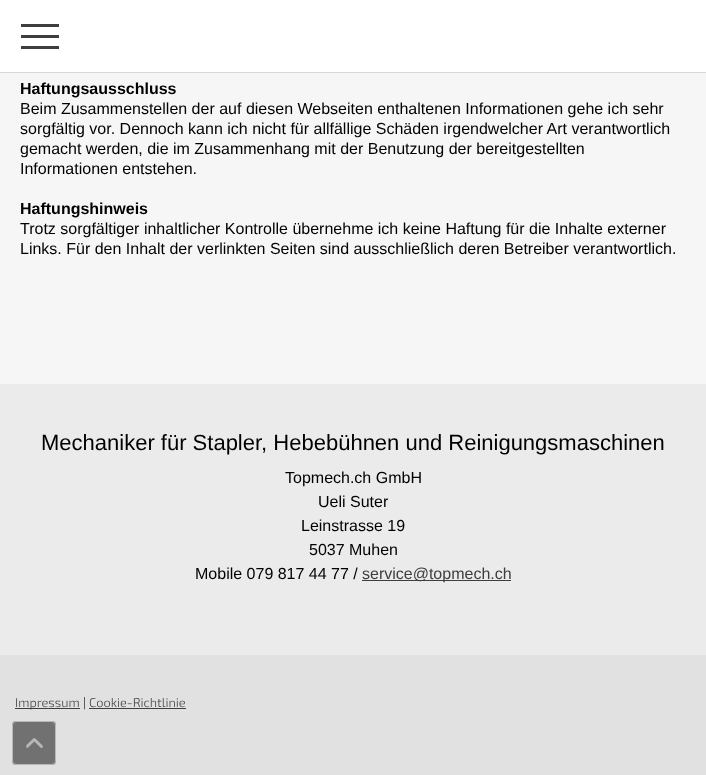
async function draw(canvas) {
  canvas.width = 706;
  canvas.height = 775;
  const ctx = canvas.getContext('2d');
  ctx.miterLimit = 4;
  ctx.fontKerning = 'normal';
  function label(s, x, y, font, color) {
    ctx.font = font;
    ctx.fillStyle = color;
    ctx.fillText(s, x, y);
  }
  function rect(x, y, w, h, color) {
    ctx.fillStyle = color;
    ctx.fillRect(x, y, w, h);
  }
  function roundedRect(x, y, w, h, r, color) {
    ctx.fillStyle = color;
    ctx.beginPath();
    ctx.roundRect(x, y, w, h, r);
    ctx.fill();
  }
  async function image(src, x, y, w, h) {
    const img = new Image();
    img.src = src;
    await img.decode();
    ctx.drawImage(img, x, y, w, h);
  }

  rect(0, 0, 706, 775, '#f6f6f6');
  rect(0, 0, 706, 72, '#fff');
  rect(0, 72, 706, 1, '#d7d7d7');
  rect(21, 35, 38, 3, '#3e3e3e');
  rect(21, 24, 38, 3, '#3e3e3e');
  rect(21, 46, 38, 3, '#3e3e3e');
  label('Haftungsausschluss', 20, 94, 'bold 16px Liberation Sans', '#000');
  label('Beim Zusammenstellen der auf diesen Webseiten enthaltenen Informationen gehe ich sehr', 20, 114, '16px Liberation Sans', '#000');
  label('sorgfältig vor. Dennoch kann ich nicht für allfällige Schäden irgendwelcher Art verantwortlich', 20, 134, '16px Liberation Sans', '#000');
  label('gemacht werden, die im Zusammenhang mit der Benutzung der bereitgestellten', 20, 154, '16px Liberation Sans', '#000');
  label('Informationen entstehen.', 20, 174, '16px Liberation Sans', '#000');
  label('Haftungshinweis', 20, 214, 'bold 16px Liberation Sans', '#000');
  label('Trotz sorgfältiger inhaltlicher Kontrolle übernehme ich keine Haftung für die Inhalte externer', 20, 234, '16px Liberation Sans', '#000');
  label('Links. Für den Inhalt der verlinkten Seiten sind ausschließlich deren Betreiber verantwortlich.', 20, 254, '16px Liberation Sans', '#000');
  rect(0, 384, 706, 271, '#ebebeb');
  label('Mechaniker für Stapler, Hebebühnen und Reinigungsmaschinen', 41, 450, '22px Liberation Sans', '#000');
  label('Topmech.ch GmbH', 285, 483, '16px Liberation Sans', '#000');
  label('Ueli Suter', 318, 507, '16px Liberation Sans', '#000');
  label('Leinstrasse 19', 301, 531, '16px Liberation Sans', '#000');
  label('5037 Muhen', 309, 555, '16px Liberation Sans', '#000');
  label('Mobile 079 817 44 77 /', 195, 579, '16px Liberation Sans', '#000');
  rect(362, 580, 149, 1, '#3e3e3e');
  label('service@topmech.ch', 362, 579, '16px Liberation Sans', '#3e3e3e');
  rect(0, 655, 706, 120, '#e1e1e1');
  rect(15, 708, 65, 1, '#3e3e3e');
  label('Impressum', 15, 707, '300 12.75px "Exo 2"', '#3e3e3e');
  label('|', 83, 707, '300 12.75px "Exo 2"', '#000');
  label('Cookie-Richtlinie', 89, 707, '300 12.75px "Exo 2"', '#3e3e3e');
  rect(89, 708, 97, 1, '#3e3e3e');
  roundedRect(12, 721, 44, 44, 4, '#717171');
  ctx.beginPath();
  ctx.roundRect(12.5, 721.5, 43, 43, 3.5);
  ctx.strokeStyle = '#ffffff80';
  ctx.stroke();
  await image('assets/img1.png', 26, 738, 17, 10);
}

draw(document.querySelector('canvas'));
